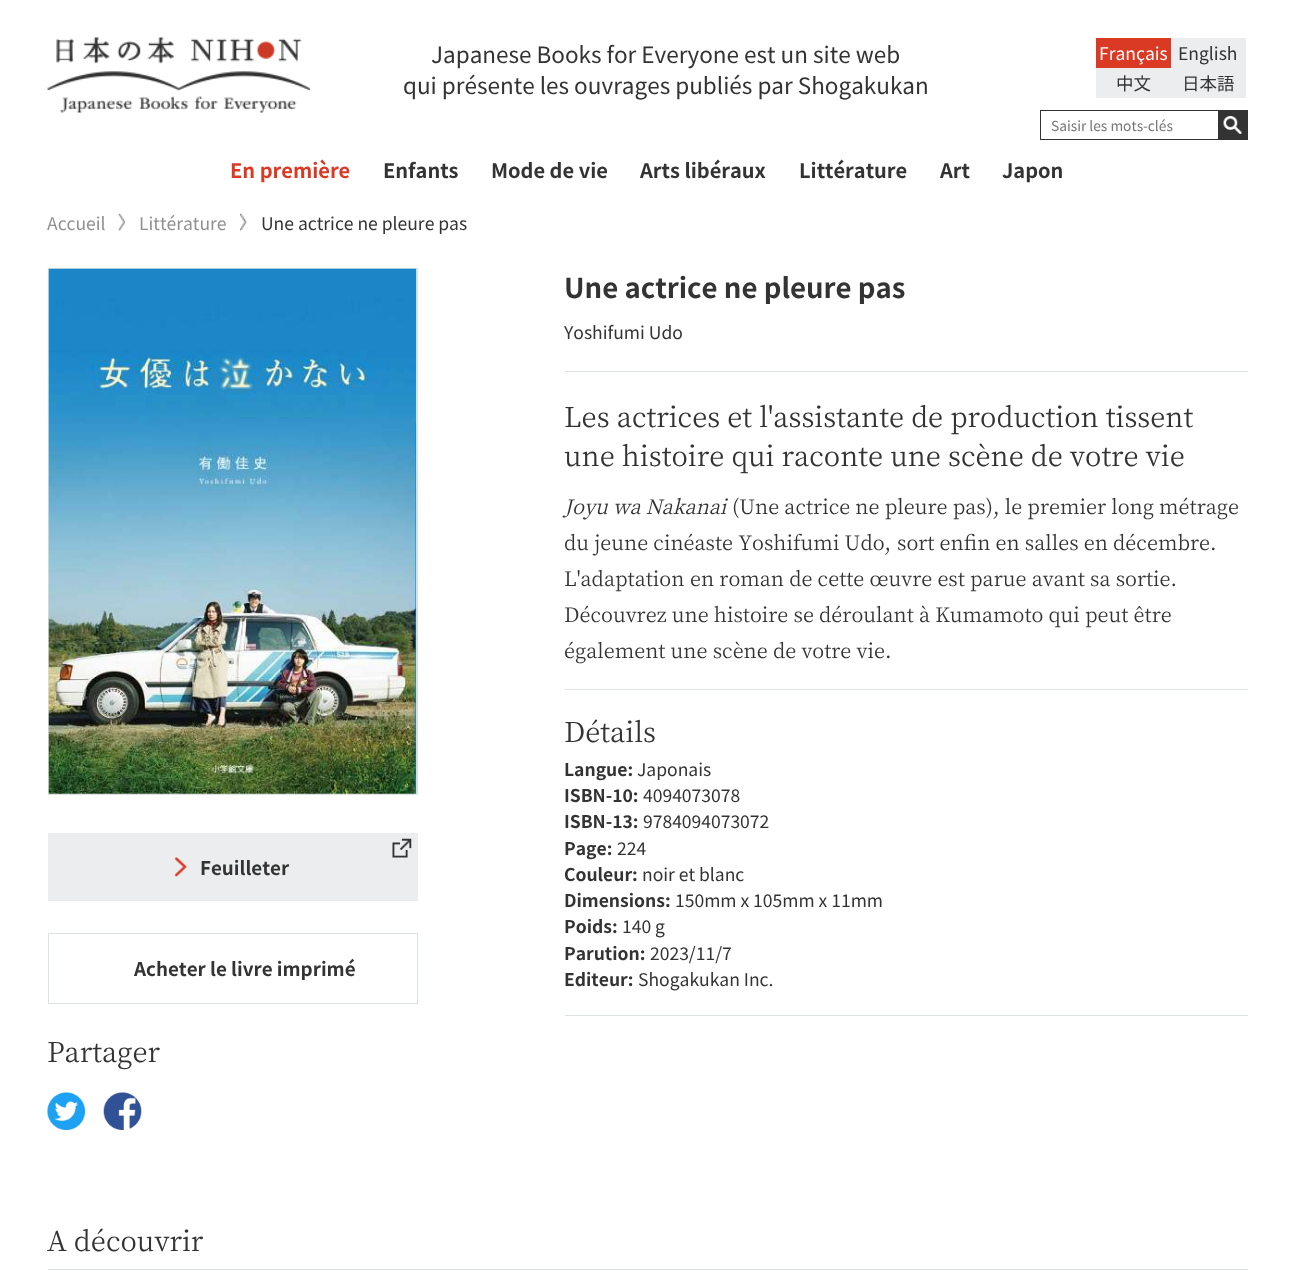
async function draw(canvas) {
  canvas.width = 1293;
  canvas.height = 1287;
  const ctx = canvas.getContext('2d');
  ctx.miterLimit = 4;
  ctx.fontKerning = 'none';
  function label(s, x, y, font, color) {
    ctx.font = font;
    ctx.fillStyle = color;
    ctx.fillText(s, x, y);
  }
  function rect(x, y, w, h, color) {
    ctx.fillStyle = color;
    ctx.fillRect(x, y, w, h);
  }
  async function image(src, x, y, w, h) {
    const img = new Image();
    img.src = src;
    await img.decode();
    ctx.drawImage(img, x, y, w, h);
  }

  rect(0, 0, 1293, 1287, '#fff');
  await image('assets/img1.png', 47, 37, 263, 76);
  label('Japanese Books for Everyone est un site web', 431, 63, '22.5px Noto Sans JP', '#333');
  label('qui présente les ouvrages publiés par Shogakukan', 403, 94, '22.5px Noto Sans JP', '#333');
  rect(1096, 38, 75, 30, '#da3924');
  label('Français', 1099, 60, '17.5px Noto Sans JP', '#fff');
  rect(1171, 38, 75, 60, '#ecedee');
  label('English', 1178, 60, '17.5px Noto Sans JP', '#333');
  rect(1096, 68, 75, 30, '#ecedee');
  label('中文', 1116, 90, '17.5px Noto Sans JP', '#333');
  label('日本語', 1182, 90, '17.5px Noto Sans JP', '#333');
  ctx.strokeStyle = '#333';
  ctx.strokeRect(1040.5, 110.5, 207, 29);
  label('Saisir les mots-clés', 1051, 131, '13.75px Noto Sans JP', '#757575');
  rect(1218, 111, 29, 28, '#333');
  await image('assets/img2.png', 1223, 116, 19, 18);
  label('En première', 230, 178, 'bold 20px Noto Sans JP', '#da3924');
  label('Enfants', 383, 178, 'bold 20px Noto Sans JP', '#333');
  label('Mode de vie', 491, 178, 'bold 20px Noto Sans JP', '#333');
  label('Arts libéraux', 640, 178, 'bold 20px Noto Sans JP', '#333');
  label('Littérature', 799, 178, 'bold 20px Noto Sans JP', '#333');
  label('Art', 940, 178, 'bold 20px Noto Sans JP', '#333');
  label('Japon', 1002, 178, 'bold 20px Noto Sans JP', '#333');
  label('Accueil', 47, 230, '17.5px Noto Sans JP', '#909090');
  await image('assets/img3.png', 118, 213, 8, 19);
  label('Littérature', 139, 230, '17.5px Noto Sans JP', '#909090');
  await image('assets/img4.png', 240, 213, 7, 19);
  label('Une actrice ne pleure pas', 261, 230, '17.5px Noto Sans JP', '#333');
  ctx.strokeStyle = '#dce1e1';
  ctx.strokeRect(48.5, 268.5, 369, 526);
  await image('assets/img5.png', 48, 268, 369, 526);
  rect(48, 833, 370, 68, '#ecedee');
  await image('assets/img6.png', 392, 838, 20, 20);
  await image('assets/img7.png', 175, 857, 12, 20);
  label('Feuilleter', 200, 875, 'bold 18.75px Noto Sans JP', '#333');
  ctx.strokeRect(48.5, 933.5, 369, 70);
  label('Acheter le livre imprimé', 134, 976, 'bold 18.75px Noto Sans JP', '#333');
  label('Partager', 47, 1062, '27.5px Noto Serif CJK JP', '#333');
  await image('assets/img8.png', 47, 1092, 38, 38);
  await image('assets/img9.png', 103, 1092, 39, 38);
  rect(565, 371, 683, 1, '#dce1e1');
  label('Une actrice ne pleure pas', 564, 298, 'bold 27.5px Noto Sans JP', '#333');
  label('Yoshifumi Udo', 564, 339, '17.5px Noto Sans JP', '#333');
  label('Les actrices et l\'assistante de production tissent', 564, 427, '27.5px Noto Serif CJK JP', '#333');
  label('une histoire qui raconte une scène de votre vie', 564, 466, '27.5px Noto Serif CJK JP', '#333');
  label('Joyu wa Nakanai', 564, 514, 'italic 20px Noto Serif CJK JP', '#333');
  label('(Une actrice ne pleure pas), le premier long métrage', 732, 514, '20px Noto Serif CJK JP', '#333');
  label('du jeune cinéaste Yoshifumi Udo,', 564, 550, '20px Noto Serif CJK JP', '#333');
  label('sort enfin en salles en décembre.', 897, 550, '20px Noto Serif CJK JP', '#333');
  label('L\'adaptation', 564, 586, '20px Noto Serif CJK JP', '#333');
  label('en roman de cette œuvre est parue avant sa sortie.', 690, 586, '20px Noto Serif CJK JP', '#333');
  label('Découvrez une histoire se déroulant à Kumamoto qui peut être', 564, 622, '20px Noto Serif CJK JP', '#333');
  label('également une scène de votre vie.', 564, 658, '20px Noto Serif CJK JP', '#333');
  rect(565, 689, 683, 1, '#dce1e1');
  rect(565, 1015, 683, 1, '#dce1e1');
  label('Détails', 564, 742, '27.5px Noto Serif CJK JP', '#333');
  label('Langue:', 564, 776, 'bold 17.5px Noto Sans JP', '#333');
  label('Japonais', 637, 776, '17.5px Noto Sans JP', '#333');
  label('ISBN-10:', 564, 802, 'bold 17.5px Noto Sans JP', '#333');
  label('4094073078', 643, 802, '17.5px Noto Sans JP', '#333');
  label('ISBN-13:', 564, 828, 'bold 17.5px Noto Sans JP', '#333');
  label('9784094073072', 643, 828, '17.5px Noto Sans JP', '#333');
  label('Page:', 564, 855, 'bold 17.5px Noto Sans JP', '#333');
  label('224', 617, 855, '17.5px Noto Sans JP', '#333');
  label('Couleur:', 564, 881, 'bold 17.5px Noto Sans JP', '#333');
  label('noir et blanc', 642, 881, '17.5px Noto Sans JP', '#333');
  label('Dimensions:', 564, 907, 'bold 17.5px Noto Sans JP', '#333');
  label('150mm x 105mm x 11mm', 675, 907, '17.5px Noto Sans JP', '#333');
  label('Poids:', 564, 933, 'bold 17.5px Noto Sans JP', '#333');
  label('140 g', 622, 933, '17.5px Noto Sans JP', '#333');
  label('Parution:', 564, 960, 'bold 17.5px Noto Sans JP', '#333');
  label('2023/11/7', 650, 960, '17.5px Noto Sans JP', '#333');
  label('Editeur:', 564, 986, 'bold 17.5px Noto Sans JP', '#333');
  label('Shogakukan Inc.', 638, 986, '17.5px Noto Sans JP', '#333');
  rect(48, 1269, 1200, 1, '#dce1e1');
  label('A découvrir', 47, 1251, '27.5px Noto Serif CJK JP', '#333');
}

draw(document.querySelector('canvas'));
